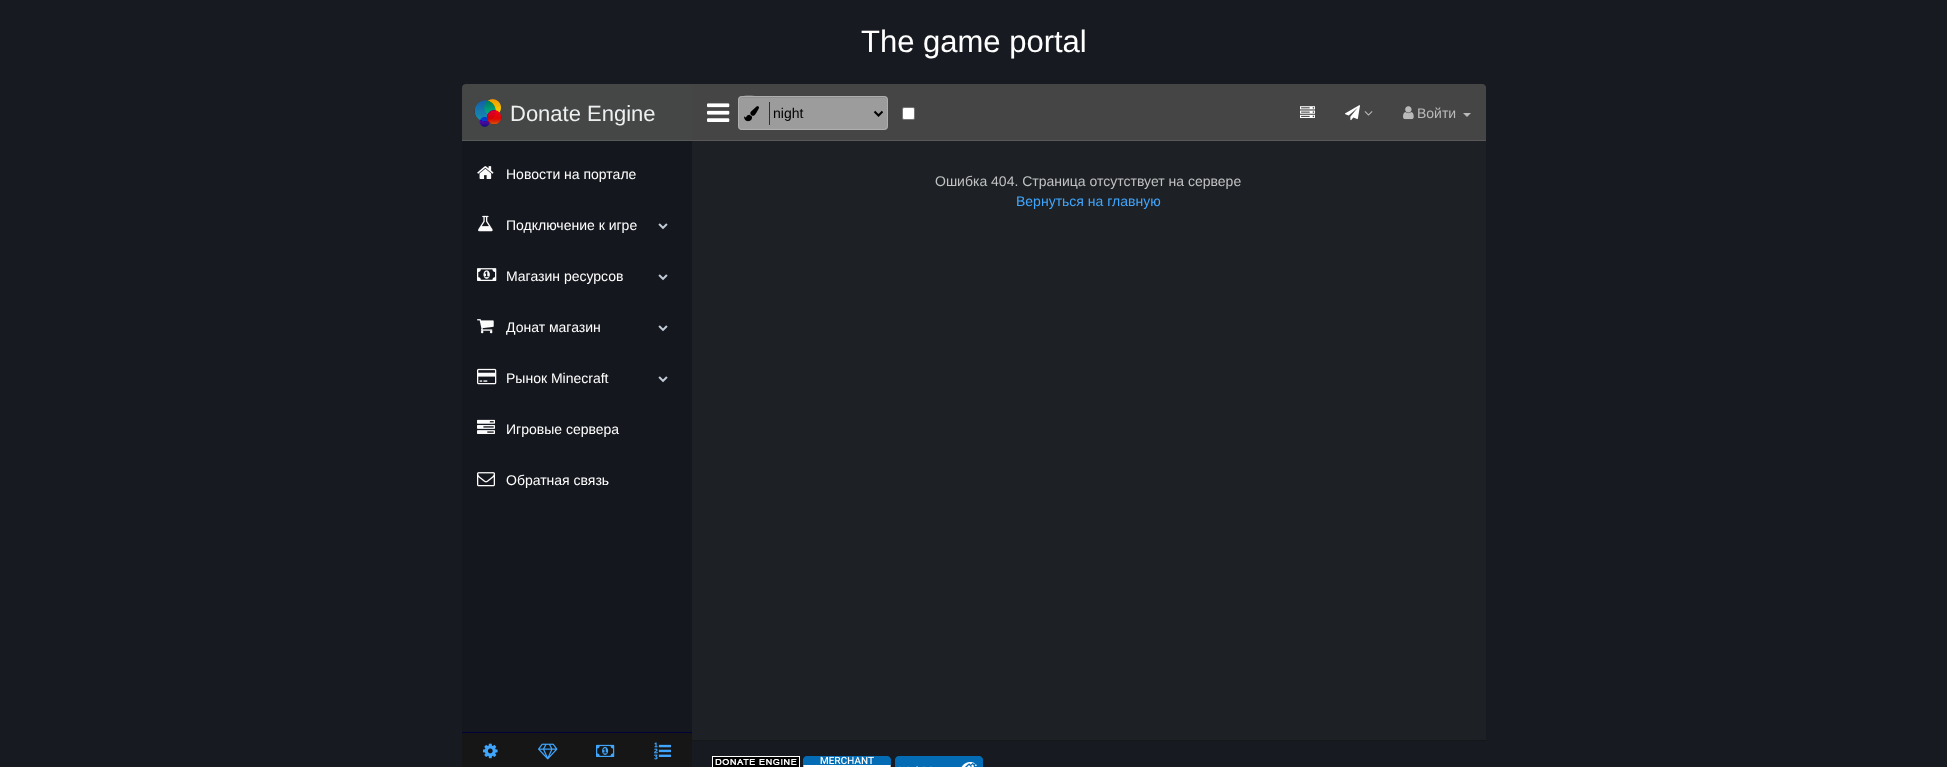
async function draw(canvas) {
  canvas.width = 1947;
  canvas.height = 767;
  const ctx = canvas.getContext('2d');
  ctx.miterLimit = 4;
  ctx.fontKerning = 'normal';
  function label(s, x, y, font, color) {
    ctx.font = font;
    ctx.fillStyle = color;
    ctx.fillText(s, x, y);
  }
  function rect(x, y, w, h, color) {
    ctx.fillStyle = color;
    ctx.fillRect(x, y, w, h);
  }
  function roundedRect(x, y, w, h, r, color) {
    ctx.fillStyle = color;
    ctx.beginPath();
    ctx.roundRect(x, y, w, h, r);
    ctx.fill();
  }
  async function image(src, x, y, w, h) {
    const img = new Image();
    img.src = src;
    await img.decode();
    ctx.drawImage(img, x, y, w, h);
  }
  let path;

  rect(0, 0, 1947, 767, '#171a21');
  label('The game portal', 861, 52, '31px Liberation Sans', '#fff');
  rect(462, 84, 1024, 648, '#14171d');
  ctx.fillStyle = '#454646';
  ctx.beginPath();
  ctx.roundRect(462, 84, 230, 57, [4, 0, 0, 0]);
  ctx.fill();
  rect(462, 140, 230, 1, '#585959');
  await image('assets/img1.png', 474, 99, 28, 28);
  label('Donate Engine', 510, 121, '22px Liberation Sans', '#ecf0f1');
  await image('assets/img2.png', 477, 166, 17, 13);
  label('Новости на портале', 506, 179, '14px Liberation Sans', '#fff');
  await image('assets/img3.png', 478, 215, 15, 17);
  label('Подключение к игре', 506, 230, '14px Liberation Sans', '#fff');
  await image('assets/img4.png', 658, 223, 10, 7);
  await image('assets/img5.png', 477, 268, 20, 13);
  label('Магазин ресурсов', 506, 281, '14px Liberation Sans', '#fff');
  await image('assets/img4.png', 658, 274, 10, 7);
  await image('assets/img6.png', 477, 319, 17, 15);
  label('Донат магазин', 506, 332, '14px Liberation Sans', '#fff');
  await image('assets/img4.png', 658, 325, 10, 7);
  await image('assets/img7.png', 477, 368, 20, 17);
  label('Рынок Minecraft', 506, 383, '14px Liberation Sans', '#fff');
  await image('assets/img4.png', 658, 376, 10, 7);
  await image('assets/img8.png', 477, 419, 18, 15);
  label('Игровые сервера', 506, 434, '14px Liberation Sans', '#fff');
  await image('assets/img9.png', 477, 472, 18, 15);
  label('Обратная связь', 506, 485, '14px Liberation Sans', '#fff');
  rect(462, 732, 230, 1, '#000238');
  rect(462, 733, 230, 34, '#161616');
  await image('assets/img10.png', 483, 743, 15, 16);
  await image('assets/img11.png', 538, 743, 20, 17);
  await image('assets/img12.png', 596, 744, 19, 13);
  await image('assets/img13.png', 654, 742, 17, 18);
  ctx.fillStyle = '#1d2024';
  ctx.beginPath();
  ctx.roundRect(692, 84, 794, 656, [0, 4, 0, 0]);
  ctx.fill();
  ctx.fillStyle = '#4c4c4cd9';
  ctx.beginPath();
  ctx.roundRect(692, 84, 794, 57, [0, 4, 0, 0]);
  ctx.fill();
  rect(692, 140, 794, 1, '#585859');
  await image('assets/img14.png', 707, 103, 23, 19);
  roundedRect(738, 96, 150, 34, 4, '#9c9c9c');
  ctx.fillStyle = '#909090';
  path = new Path2D('M742 98H884C886 98 887 99 887 101C887 99 887 98 885 97H766C758 97 739 92 739 101C739 99 740 98 742 98Z');
  ctx.fill(path);
  ctx.beginPath();
  ctx.roundRect(738.5, 96.5, 149, 33, 3.5);
  ctx.strokeStyle = '#afafaf';
  ctx.stroke();
  rect(769, 102, 1, 23, '#313131');
  await image('assets/img15.png', 744, 106, 15, 16);
  path = new Path2D('M874.5 111.5L878.5 115.5L882.5 111.5');
  ctx.strokeStyle = '#000';
  ctx.lineWidth = 2;
  ctx.stroke(path);
  label('night', 773, 118, '14px Liberation Sans', '#000');
  ctx.fillStyle = '#fff';
  ctx.beginPath();
  ctx.roundRect(902.5, 107.5, 12, 12, 1.5);
  ctx.fill();
  ctx.strokeStyle = '#767676';
  ctx.lineWidth = 1;
  ctx.stroke();
  await image('assets/img16.png', 1300, 106, 15, 12);
  await image('assets/img17.png', 1345, 105, 15, 16);
  await image('assets/img18.png', 1364, 111, 9, 5);
  await image('assets/img19.png', 1403, 106, 11, 14);
  label('Войти', 1417, 118, '14px Liberation Sans', '#bababb');
  path = new Path2D('M1463 113H1471L1467 117Z');
  ctx.fill(path);
  label('Ошибка 404. Страница отсутствует на сервере', 935, 186, '14px Liberation Sans', '#c0c1c2');
  label('Вернуться на главную', 1016, 206, '14px Liberation Sans', '#40a6fd');
  rect(692, 740, 794, 1, '#151719');
  await image('assets/img20.png', 712, 756, 88, 11);
  await image('assets/img21.png', 803, 756, 88, 11);
  await image('assets/img22.png', 895, 756, 88, 11);
}

draw(document.querySelector('canvas'));
